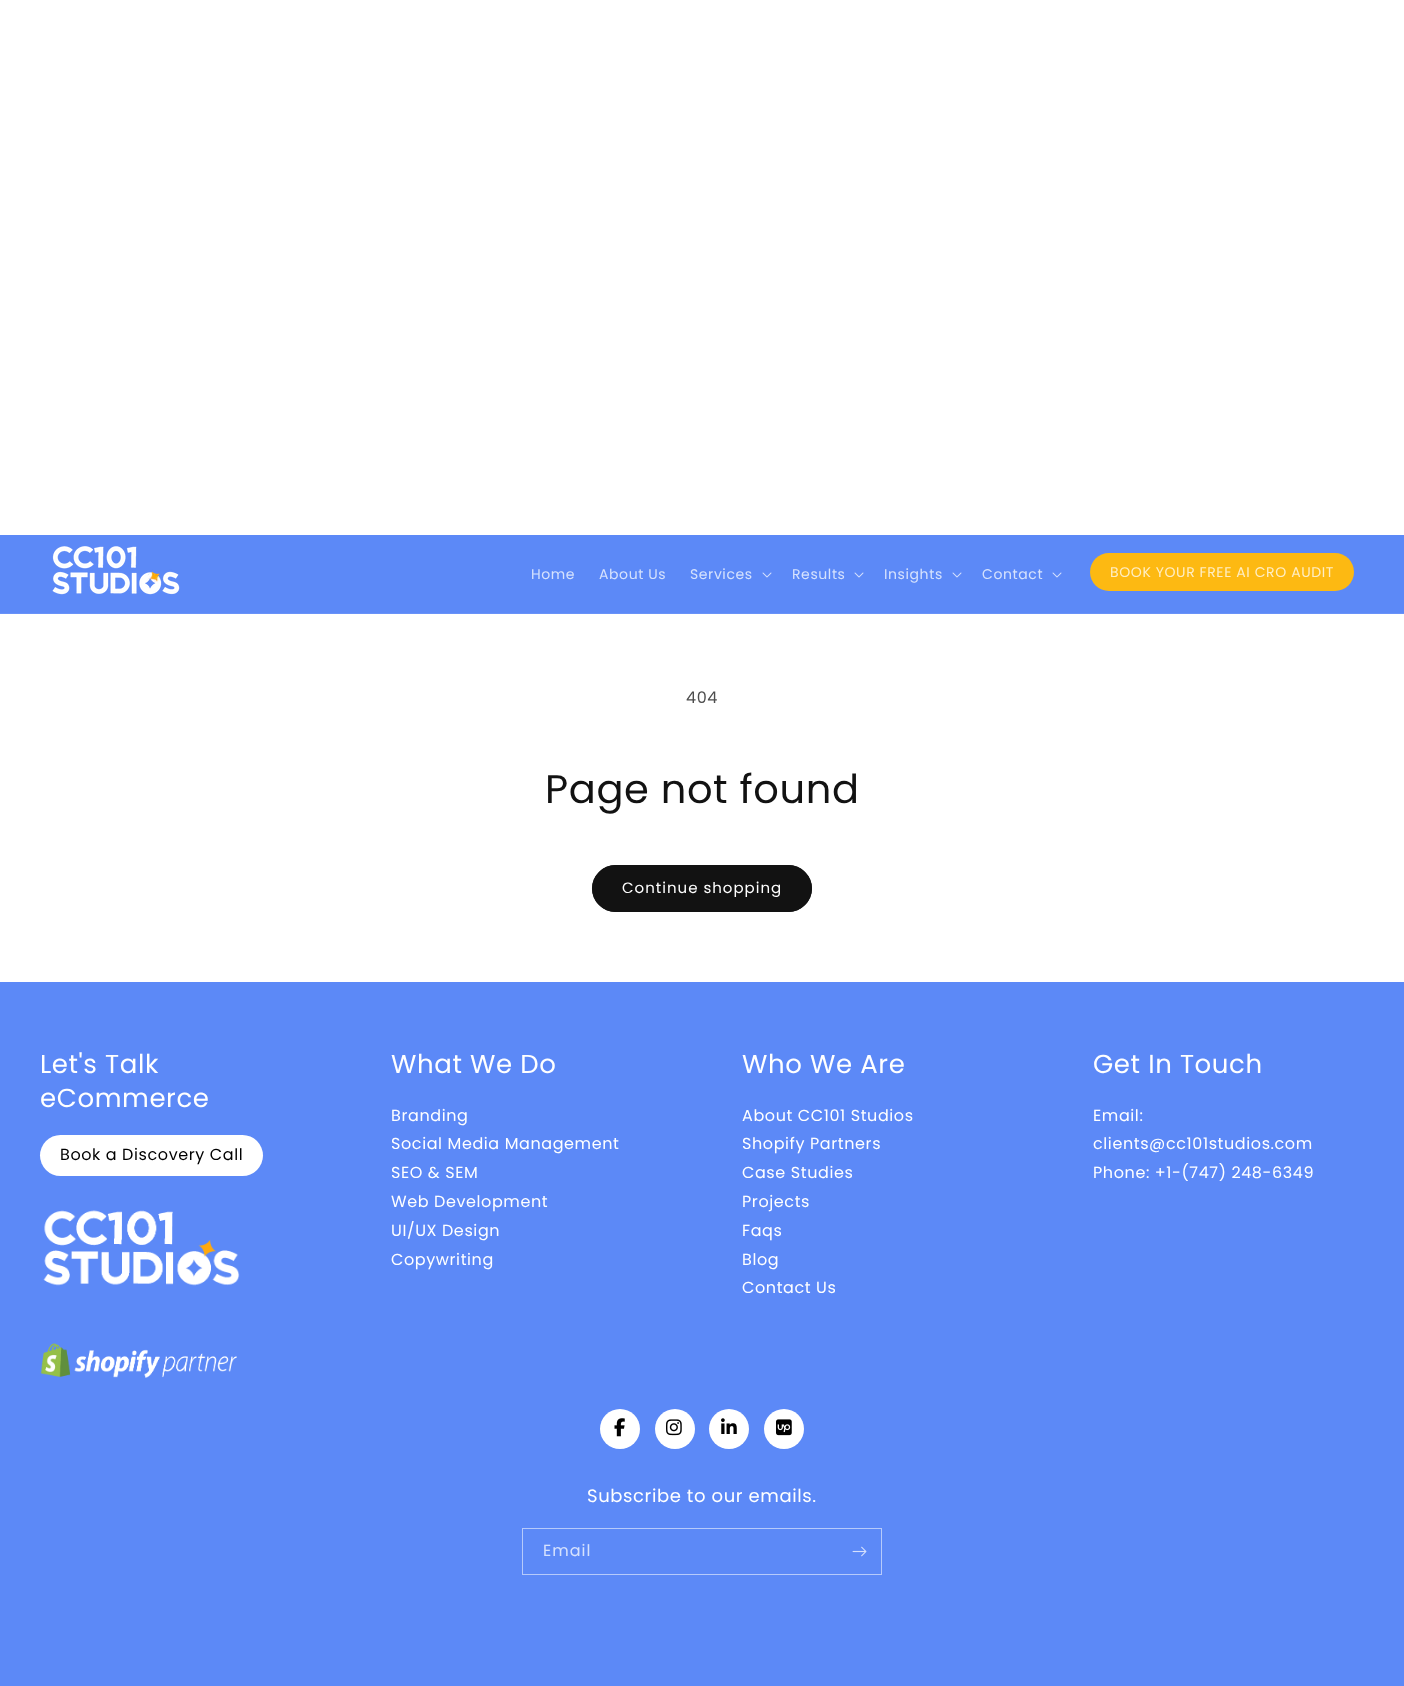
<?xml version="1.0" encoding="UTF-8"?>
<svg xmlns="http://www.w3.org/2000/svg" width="1404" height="1686">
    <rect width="100%" height="100%" fill="#FFFFFF"/>
    <rect x="0" y="535" width="1404" height="78" fill="#5C89F7"/>
    <rect x="0" y="613" width="1404" height="1" fill="#6992F8"/>
    <image x="52" y="546" width="128" height="49" href="img_01.png"/>
    <text x="531" y="579" font-family="Poppins" font-size="14" letter-spacing="0.6" fill="#D6E2FD">Home</text>
    <text x="599" y="579" font-family="Poppins" font-size="14" letter-spacing="0.6" fill="#D6E2FD">About Us</text>
    <text x="690" y="579" font-family="Poppins" font-size="14" letter-spacing="0.6" fill="#D6E2FD">Services</text>
    <image x="762" y="572" width="10" height="6" href="img_02.png"/>
    <text x="792" y="579" font-family="Poppins" font-size="14" letter-spacing="0.6" fill="#D6E2FD">Results</text>
    <image x="854" y="572" width="10" height="6" href="img_02.png"/>
    <text x="884" y="579" font-family="Poppins" font-size="14" letter-spacing="0.6" fill="#D6E2FD">Insights</text>
    <image x="952" y="572" width="10" height="6" href="img_02.png"/>
    <text x="982" y="579" font-family="Poppins" font-size="14" letter-spacing="0.6" fill="#D6E2FD">Contact</text>
    <image x="1052" y="572" width="10" height="6" href="img_02.png"/>
    <rect x="1090" y="553" width="264" height="38" rx="19" fill="#FDB912"/>
    <text x="1110" y="577" font-family="Poppins" font-size="14" letter-spacing="0.6" fill="#FFEEC4">BOOK YOUR FREE AI CRO AUDIT</text>
    <text x="686" y="703" font-family="Poppins" font-size="16" letter-spacing="0.6" fill="#4D4D4D">404</text>
    <text x="545" y="803" font-family="Poppins" font-size="40" letter-spacing="0.6" fill="#121212">Page not found</text>
    <rect x="592" y="865" width="220" height="47" rx="23.5" fill="#121212"/>
    <rect x="592.5" y="865.5" width="219" height="46" rx="23" fill="none" stroke="#121212"/>
    <text x="622" y="893" font-family="Poppins" font-size="15" letter-spacing="1" fill="#FFFFFF">Continue shopping</text>
    <rect x="0" y="982" width="1404" height="704" fill="#5C89F7"/>
    <text font-family="Poppins" font-size="26" letter-spacing="0.6" fill="#FFFFFF">
        <tspan x="40" y="1073">Let's Talk</tspan>
        <tspan x="40" y="1107">eCommerce</tspan>
    </text>
    <rect x="40" y="1135" width="223" height="41" rx="20.5" fill="#FFFFFF"/>
    <text x="60" y="1160" font-family="Poppins" font-size="16" letter-spacing="0.6" fill="#000000">Book a Discovery Call</text>
    <image x="43" y="1210" width="197" height="76" href="img_03.png"/>
    <image x="40" y="1343" width="197" height="35" href="img_04.png"/>
    <text x="391" y="1073" font-family="Poppins" font-size="26" letter-spacing="0.6" fill="#FFFFFF">What We Do</text>
    <text font-family="Poppins" font-size="16" letter-spacing="0.6" fill="#FFFFFF">
        <tspan x="391" y="1121">Branding</tspan>
        <tspan x="391" y="1149">Social Media Management</tspan>
        <tspan x="391" y="1178">SEO &amp; SEM</tspan>
        <tspan x="391" y="1207">Web Development</tspan>
        <tspan x="391" y="1236">UI/UX Design</tspan>
        <tspan x="391" y="1265">Copywriting</tspan>
    </text>
    <text x="742" y="1073" font-family="Poppins" font-size="26" letter-spacing="0.6" fill="#FFFFFF">Who We Are</text>
    <text font-family="Poppins" font-size="16" letter-spacing="0.6" fill="#FFFFFF">
        <tspan x="742" y="1121">About CC101 Studios</tspan>
        <tspan x="742" y="1149">Shopify Partners</tspan>
        <tspan x="742" y="1178">Case Studies</tspan>
        <tspan x="742" y="1207">Projects</tspan>
        <tspan x="742" y="1236">Faqs</tspan>
        <tspan x="742" y="1265">Blog</tspan>
        <tspan x="742" y="1293">Contact Us</tspan>
    </text>
    <text x="1093" y="1073" font-family="Poppins" font-size="26" letter-spacing="0.6" fill="#FFFFFF">Get In Touch</text>
    <text font-family="Poppins" font-size="16" letter-spacing="0.6" fill="#FFFFFF">
        <tspan x="1093" y="1121">Email:</tspan>
        <tspan x="1093" y="1149">clients@cc101studios.com</tspan>
        <tspan x="1093" y="1178">Phone: +1-(747) 248-6349</tspan>
    </text>
    <circle cx="620" cy="1429" r="20" fill="#FFFFFF"/>
    <image x="614" y="1418" width="11" height="19" href="img_05.png"/>
    <circle cx="675" cy="1429" r="20" fill="#FFFFFF"/>
    <image x="666" y="1419" width="16" height="17" href="img_06.png"/>
    <circle cx="729" cy="1429" r="20" fill="#FFFFFF"/>
    <image x="721" y="1418" width="16" height="16" href="img_07.png"/>
    <circle cx="784" cy="1429" r="20" fill="#FFFFFF"/>
    <image x="776" y="1419" width="16" height="17" href="img_08.png"/>
    <text x="587" y="1502" font-family="Poppins" font-size="18" letter-spacing="0.6" fill="#FFFFFF">Subscribe to our emails.</text>
    <rect x="522.5" y="1528.5" width="359" height="46" fill="none" stroke="#B6CAFB"/>
    <text x="543" y="1556" font-family="Poppins" font-size="16" letter-spacing="1" fill="#D6E2FD">Email</text>
    <image x="852" y="1546" width="15" height="11" href="img_09.png"/>
</svg>
